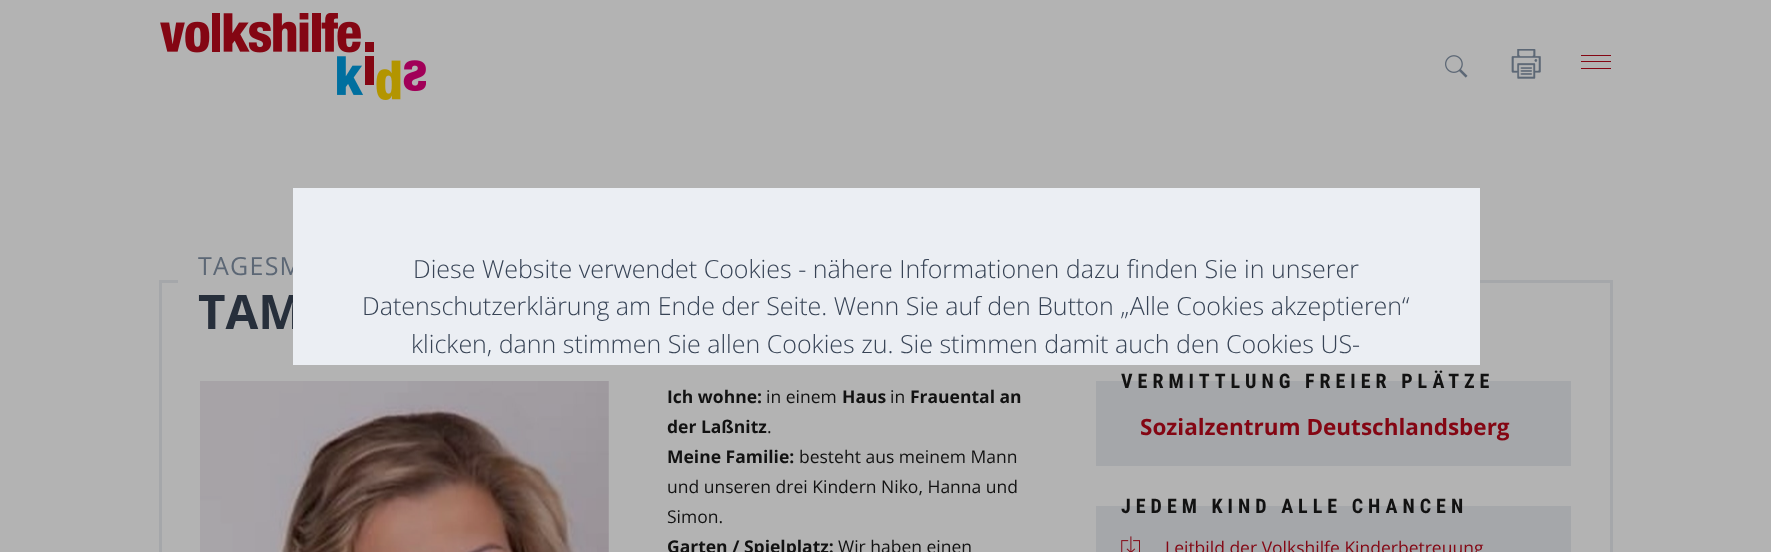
<?xml version="1.0" encoding="UTF-8"?>
<svg xmlns="http://www.w3.org/2000/svg" width="1771" height="552">
    <rect width="100%" height="100%" fill="#B3B3B3"/>
    <image x="160" y="13" width="266" height="87" href="img_01.png"/>
    <image x="1445" y="55" width="23" height="23" href="img_02.png"/>
    <image x="1511" y="49" width="30" height="30" href="img_03.png"/>
    <rect x="1581" y="61" width="30" height="1" fill="#840613"/>
    <rect x="1581" y="55" width="30" height="1" fill="#840613"/>
    <rect x="1581" y="68" width="30" height="1" fill="#840613"/>
    <rect x="160.5" y="281.5" width="1451" height="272" fill="none" stroke="#A5A7AA" stroke-width="3"/>
    <rect x="178" y="280" width="115" height="3" fill="#B3B3B3"/>
    <text x="198" y="275" font-family="Open Sans" font-size="25" letter-spacing="1.25" fill="#5C6775">TAGESM</text>
    <text x="198" y="329" font-family="Open Sans" font-size="47.5" font-weight="700" fill="#272F3B">TAM</text>
    <image x="200" y="381" width="409" height="171" href="img_04.png"/>
    <text x="667" y="403" font-family="Open Sans" font-size="17.5" font-weight="700" fill="#121212">Ich wohne:</text>
    <text x="766" y="403" font-family="Open Sans" font-size="17.5" fill="#121212">in einem</text>
    <text x="842" y="403" font-family="Open Sans" font-size="17.5" font-weight="700" fill="#121212">Haus</text>
    <text x="890" y="403" font-family="Open Sans" font-size="17.5" fill="#121212">in</text>
    <text x="910" y="403" font-family="Open Sans" font-size="17.5" font-weight="700" fill="#121212">Frauental an</text>
    <text x="667" y="433" font-family="Open Sans" font-size="17.5" font-weight="700" fill="#121212">der Laßnitz</text>
    <text x="767" y="433" font-family="Open Sans" font-size="17.5" fill="#121212">.</text>
    <text x="667" y="463" font-family="Open Sans" font-size="17.5" font-weight="700" fill="#121212">Meine Familie:</text>
    <text x="799" y="463" font-family="Open Sans" font-size="17.5" fill="#121212">besteht aus meinem Mann</text>
    <text font-family="Open Sans" font-size="17.5" fill="#121212">
        <tspan x="667" y="493">und unseren drei Kindern Niko, Hanna und</tspan>
        <tspan x="667" y="523">Simon.</tspan>
    </text>
    <text x="667" y="553" font-family="Open Sans" font-size="17.5" font-weight="700" fill="#121212">Garten / Spielplatz:</text>
    <text x="838" y="553" font-family="Open Sans" font-size="17.5" fill="#121212">Wir haben einen</text>
    <rect x="1096" y="381" width="475" height="85" fill="#A5A7AA"/>
    <text x="1121" y="388" font-family="Roboto Condensed" font-size="20" font-weight="700" letter-spacing="5" fill="#121212">VERMITTLUNG FREIER PLÄTZE</text>
    <text x="1140" y="435" font-family="Open Sans" font-size="22.5" font-weight="700" fill="#840613">Sozialzentrum Deutschlandsberg</text>
    <rect x="1096" y="506" width="475" height="46" fill="#A5A7AA"/>
    <text x="1121" y="513" font-family="Roboto Condensed" font-size="20" font-weight="700" letter-spacing="5" fill="#121212">JEDEM KIND ALLE CHANCEN</text>
    <image x="1121" y="536" width="19" height="16" href="img_05.png"/>
    <text x="1165" y="554" font-family="Open Sans" font-size="17.5" fill="#840613">Leitbild der Volkshilfe Kinderbetreuung</text>
    <rect x="293" y="188" width="1187" height="177" fill="#EBEEF3"/>
    <text x="413" y="278" font-family="Open Sans" font-size="25" font-weight="300" fill="#374355">Diese Website verwendet Cookies - nähere Informationen dazu finden Sie in unserer</text>
    <text x="362" y="315" font-family="Open Sans" font-size="25" font-weight="300" fill="#374355">Datenschutzerklärung am Ende der Seite. Wenn Sie auf den Button „Alle Cookies akzeptieren“</text>
    <text x="411" y="353" font-family="Open Sans" font-size="25" font-weight="300" fill="#374355">klicken, dann stimmen Sie allen Cookies zu. Sie stimmen damit auch den Cookies US-</text>
</svg>
